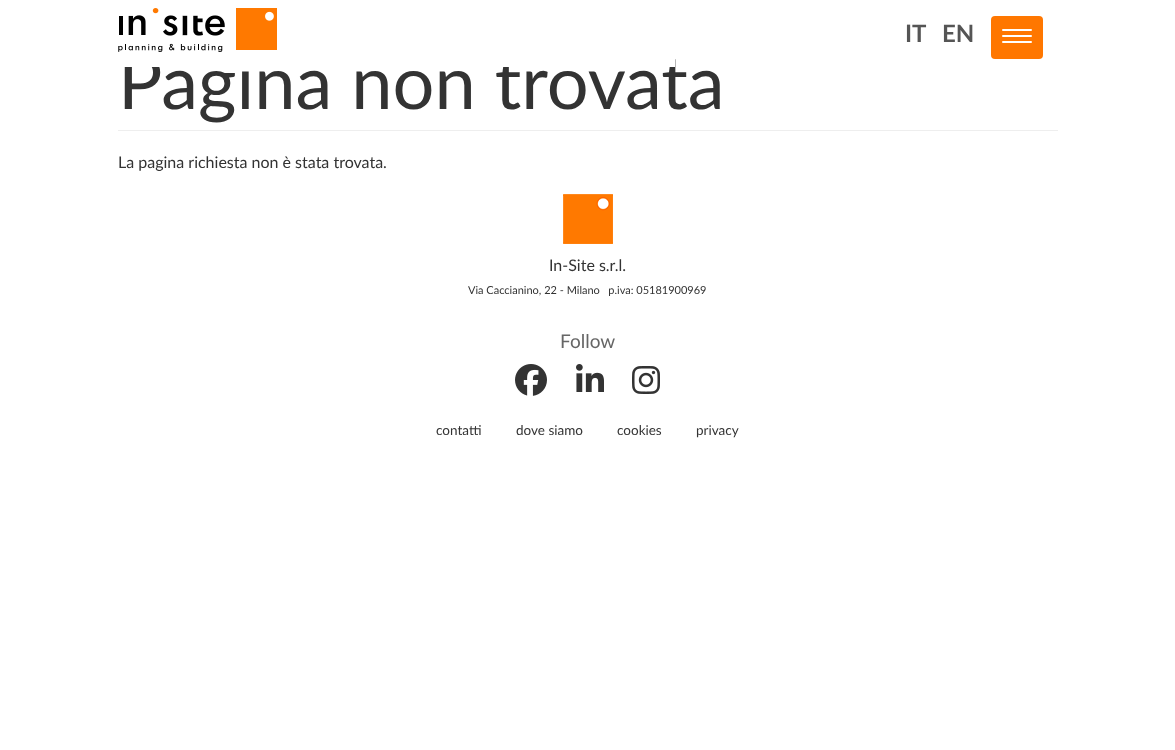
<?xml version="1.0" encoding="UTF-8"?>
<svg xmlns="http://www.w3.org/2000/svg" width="1175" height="750">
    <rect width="100%" height="100%" fill="#FFFFFF"/>
    <text x="118" y="109" font-family="Lato" font-size="74" fill="#333333">Pagina non trovata</text>
    <rect x="124" y="55" width="551" height="12" fill="#FFFFFF"/>
    <image x="118" y="8" width="159" height="44" href="img_01.png"/>
    <text x="905" y="42" font-family="Lato" font-size="24" font-weight="700" fill="#555555">IT</text>
    <text x="942" y="42" font-family="Lato" font-size="24" font-weight="700" fill="#555555">EN</text>
    <rect x="991" y="16" width="52" height="43" rx="4" fill="#FF7700"/>
    <rect x="1002" y="29" width="30" height="2" rx="1" fill="#FFFFFF"/>
    <rect x="1002" y="35" width="30" height="2" rx="1" fill="#FFFFFF"/>
    <rect x="1002" y="41" width="30" height="2" rx="1" fill="#FFFFFF"/>
    <rect x="118" y="130" width="940" height="1" fill="#EEEEEE"/>
    <text x="118" y="168" font-family="Lato" font-size="16" fill="#333333">La pagina richiesta non è stata trovata.</text>
    <image x="563" y="194" width="50" height="50" href="img_02.png"/>
    <text x="549" y="271" font-family="Lato" font-size="16" fill="#333333">In-Site s.r.l.</text>
    <text x="468" y="294" font-family="Lato" font-size="11" fill="#333333" xml:space="preserve">Via Caccianino, 22 - Milano   p.iva: 05181900969</text>
    <text x="560" y="348" font-family="Lato" font-size="19" fill="#666666">Follow</text>
    <image x="515" y="364" width="32" height="32" href="img_03.png"/>
    <image x="576" y="364" width="28" height="28" href="img_04.png"/>
    <image x="632" y="366" width="28" height="28" href="img_05.png"/>
    <text x="436" y="435" font-family="Lato" font-size="13.5" fill="#333333">contatti</text>
    <text x="516" y="435" font-family="Lato" font-size="13.5" fill="#333333">dove siamo</text>
    <text x="617" y="435" font-family="Lato" font-size="13.5" fill="#333333">cookies</text>
    <text x="696" y="435" font-family="Lato" font-size="13.5" fill="#333333">privacy</text>
</svg>
